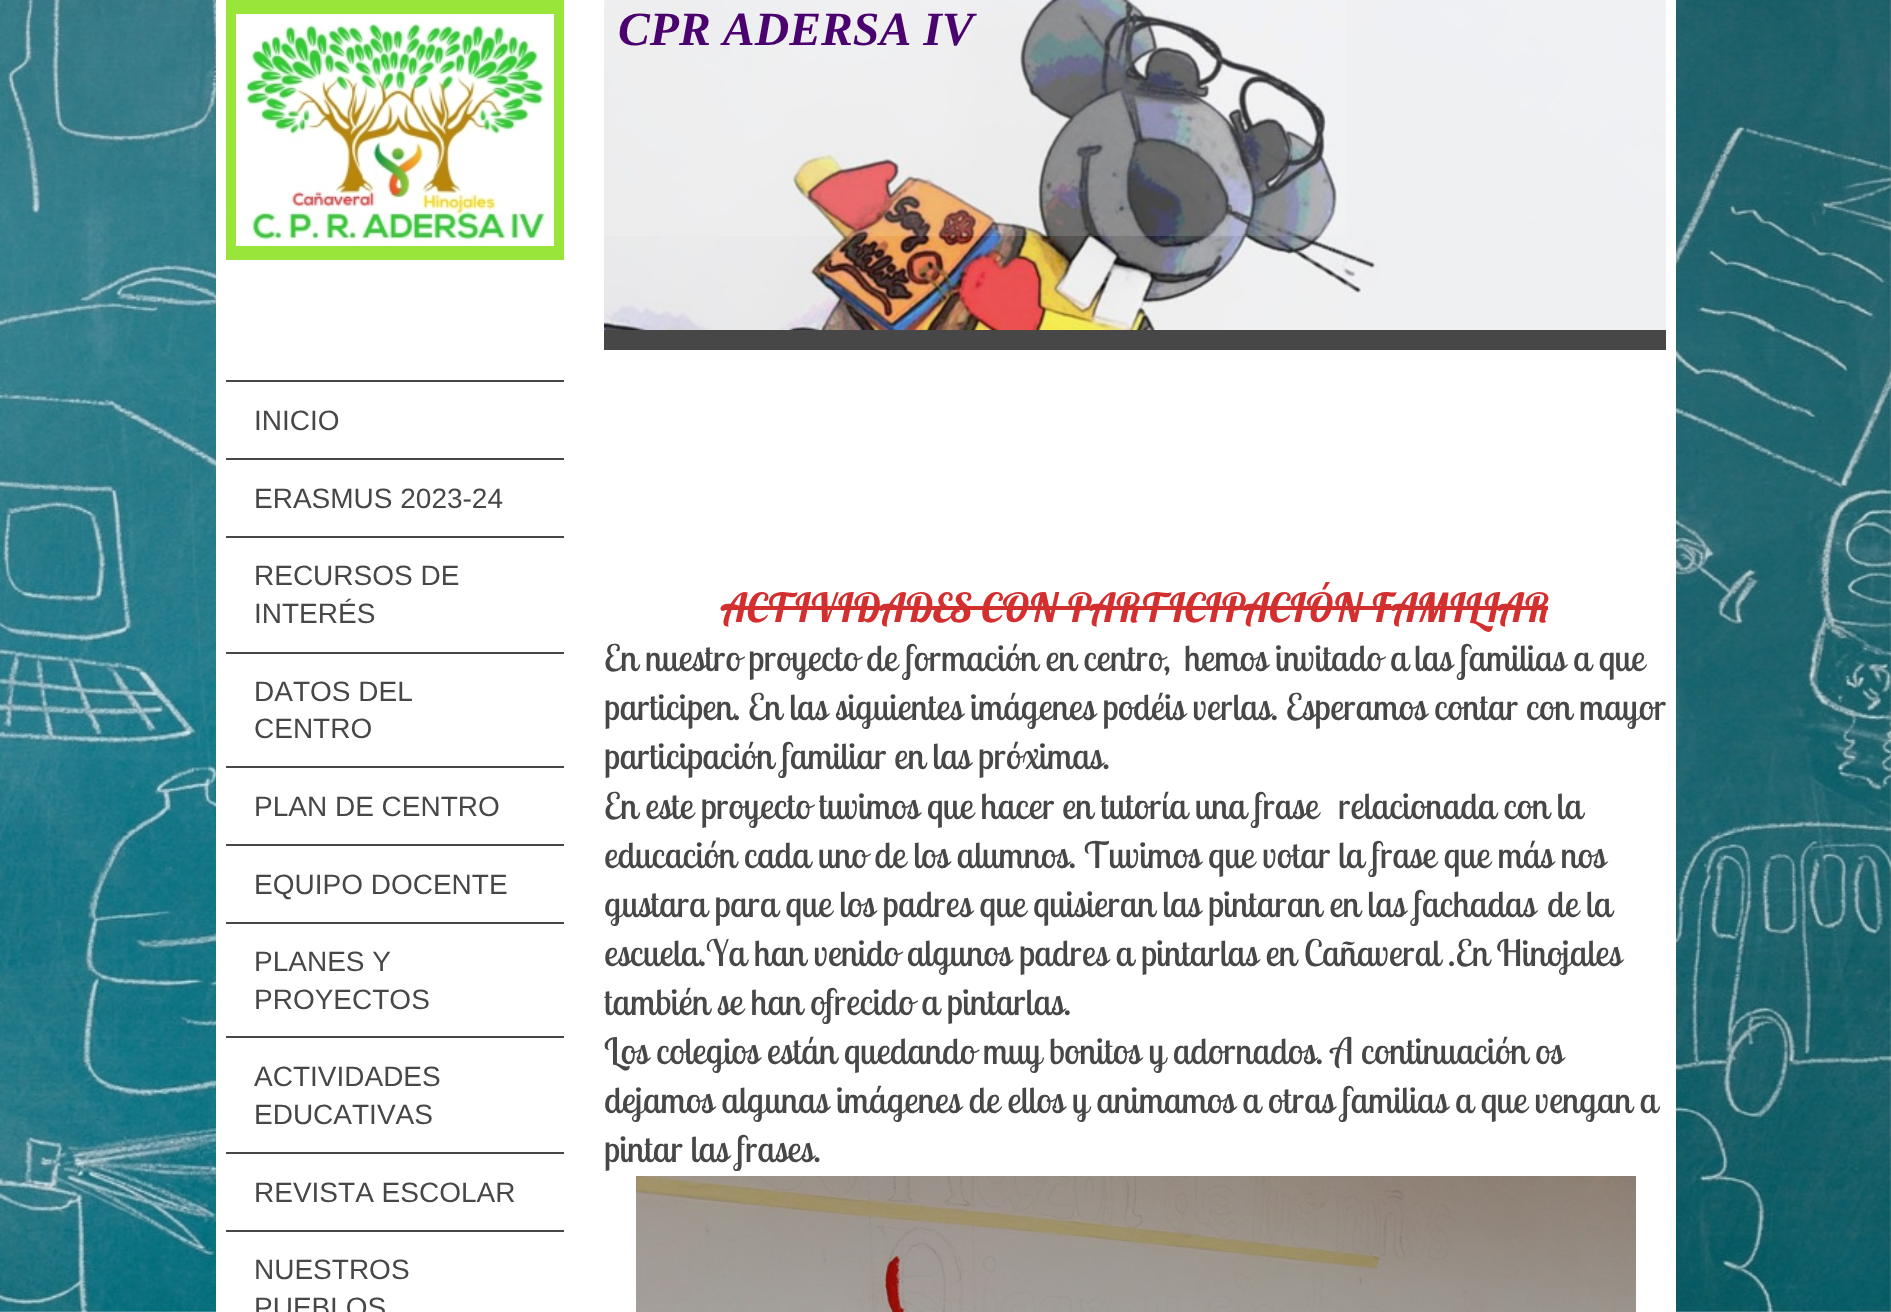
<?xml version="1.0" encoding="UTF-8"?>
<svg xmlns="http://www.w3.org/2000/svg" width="1891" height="1312">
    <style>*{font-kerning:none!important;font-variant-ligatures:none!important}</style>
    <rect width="100%" height="100%" fill="#FFFFFF"/>
    <image x="0" y="0" width="1891" height="1312" href="img_01.png"/>
    <rect x="216" y="0" width="1460" height="1312" fill="#FFFFFF"/>
    <rect x="226" y="0" width="338" height="260" fill="#99E53A"/>
    <image x="236" y="14" width="318" height="232" href="img_02.png"/>
    <rect x="226" y="380" width="338" height="2" fill="#474747"/>
    <rect x="226" y="458" width="338" height="2" fill="#474747"/>
    <text x="254" y="430" font-family="Liberation Sans" font-size="28" fill="#474747">INICIO</text>
    <rect x="226" y="536" width="338" height="2" fill="#474747"/>
    <text x="254" y="508" font-family="Liberation Sans" font-size="28" fill="#474747">ERASMUS 2023-24</text>
    <rect x="226" y="652" width="338" height="2" fill="#474747"/>
    <text font-family="Liberation Sans" font-size="28" fill="#474747">
        <tspan x="254" y="585">RECURSOS DE</tspan>
        <tspan x="254" y="623">INTERÉS</tspan>
    </text>
    <rect x="226" y="766" width="338" height="2" fill="#474747"/>
    <text font-family="Liberation Sans" font-size="28" fill="#474747">
        <tspan x="254" y="701">DATOS DEL</tspan>
        <tspan x="254" y="738">CENTRO</tspan>
    </text>
    <rect x="226" y="844" width="338" height="2" fill="#474747"/>
    <text x="254" y="816" font-family="Liberation Sans" font-size="28" fill="#474747">PLAN DE CENTRO</text>
    <rect x="226" y="922" width="338" height="2" fill="#474747"/>
    <text x="254" y="894" font-family="Liberation Sans" font-size="28" fill="#474747">EQUIPO DOCENTE</text>
    <rect x="226" y="1036" width="338" height="2" fill="#474747"/>
    <text font-family="Liberation Sans" font-size="28" fill="#474747">
        <tspan x="254" y="971">PLANES Y</tspan>
        <tspan x="254" y="1009">PROYECTOS</tspan>
    </text>
    <rect x="226" y="1152" width="338" height="2" fill="#474747"/>
    <text font-family="Liberation Sans" font-size="28" fill="#474747">
        <tspan x="254" y="1086">ACTIVIDADES</tspan>
        <tspan x="254" y="1124">EDUCATIVAS</tspan>
    </text>
    <rect x="226" y="1230" width="338" height="2" fill="#474747"/>
    <text x="254" y="1202" font-family="Liberation Sans" font-size="28" fill="#474747">REVISTA ESCOLAR</text>
    <text font-family="Liberation Sans" font-size="28" fill="#474747">
        <tspan x="254" y="1279">NUESTROS</tspan>
        <tspan x="254" y="1317">PUEBLOS</tspan>
    </text>
    <rect x="604" y="330" width="1062" height="20" fill="#474747"/>
    <image x="604" y="0" width="1062" height="330" href="img_03.png"/>
    <rect x="604" y="0" width="743" height="236" fill="#FFFFFF" fill-opacity="0.14"/>
    <text x="618" y="45" font-family="Liberation Serif" font-size="47.75" font-weight="700" font-style="italic" fill="#4A026E">CPR ADERSA IV</text>
    <text x="722" y="622" font-family="Lobster Two" font-size="40" font-weight="700" font-style="italic" fill="#D32F2F">ACTIVIDADES CON PARTICIPACIÓN FAMILIAR</text>
    <rect x="722" y="606" width="826" height="4" fill="#D32F2F"/>
    <text x="604" y="671" font-family="Lobster Two" font-size="36.4" fill="#474747">En nuestro proyecto de formación en centro,</text>
    <text x="1184" y="671" font-family="Lobster Two" font-size="36.4" fill="#474747">hemos invitado</text>
    <text x="1390" y="671" font-family="Lobster Two" font-size="36.4" fill="#474747">a</text>
    <text x="1414" y="671" font-family="Lobster Two" font-size="36.4" fill="#474747">las familias a que</text>
    <text font-family="Lobster Two" font-size="36.4" fill="#474747">
        <tspan x="604" y="720">participen. En las siguientes imágenes podéis verlas. Esperamos contar con mayor</tspan>
        <tspan x="604" y="769">participación familiar en las próximas.</tspan>
        <tspan x="604" y="819">En este proyecto tuvimos que hacer en tutoría una frase</tspan>
    </text>
    <text x="1338" y="819" font-family="Lobster Two" font-size="36.4" fill="#474747">relacionada con la</text>
    <text font-family="Lobster Two" font-size="36.4" fill="#474747">
        <tspan x="604" y="868">educación cada uno de los alumnos. Tuvimos que votar la frase que más nos</tspan>
        <tspan x="604" y="917">gustara para que los padres que quisieran las pintaran en las fachadas</tspan>
    </text>
    <text x="1547" y="917" font-family="Lobster Two" font-size="36.4" fill="#474747">de la</text>
    <text font-family="Lobster Two" font-size="36.4" fill="#474747">
        <tspan x="604" y="966">escuela.Ya han venido algunos padres a pintarlas en Cañaveral .En Hinojales</tspan>
        <tspan x="604" y="1015">también se han ofrecido a pintarlas.</tspan>
        <tspan x="604" y="1064">Los colegios están quedando muy bonitos y adornados. A continuación os</tspan>
        <tspan x="604" y="1113">dejamos algunas imágenes de ellos y animamos a otras familias a que vengan a</tspan>
        <tspan x="604" y="1162">pintar las frases.</tspan>
    </text>
    <image x="636" y="1176" width="1000" height="136" href="img_04.png"/>
</svg>
